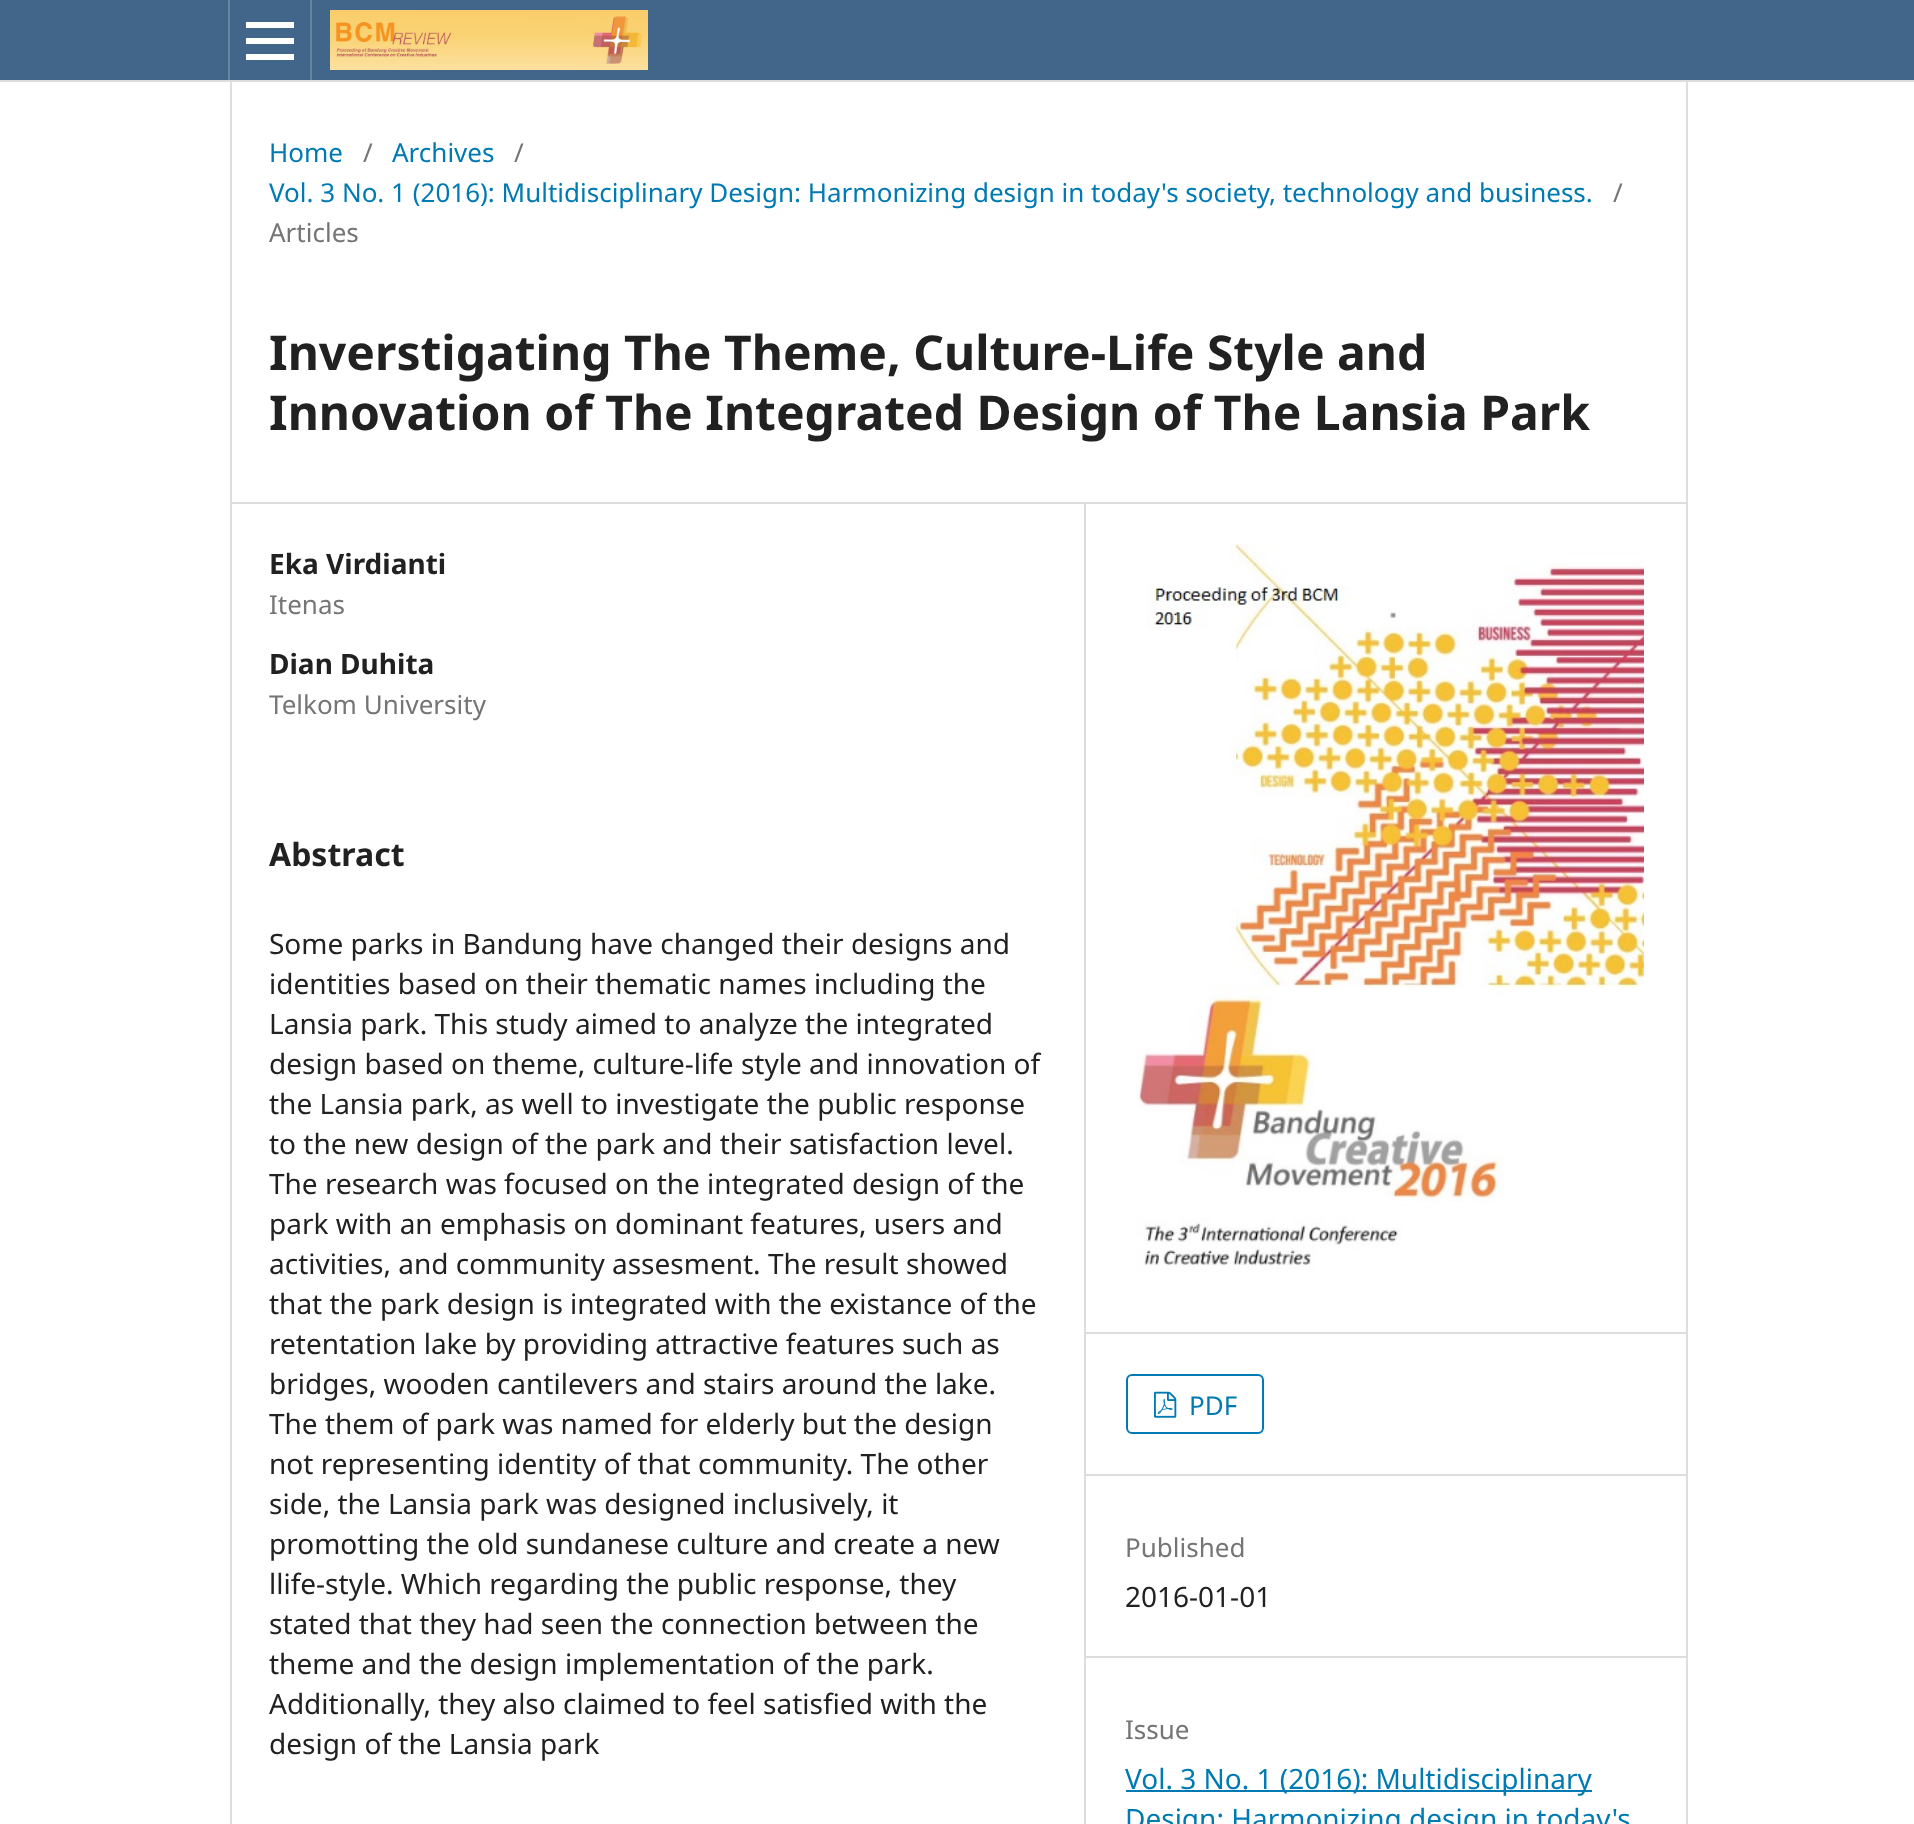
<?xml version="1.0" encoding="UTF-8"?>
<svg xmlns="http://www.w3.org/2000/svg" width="1914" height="1824">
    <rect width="100%" height="100%" fill="#FFFFFF"/>
    <rect x="0" y="0" width="1914" height="80" fill="#416689"/>
    <rect x="0" y="80" width="1914" height="2" fill="#DDDDDD"/>
    <rect x="228" y="0" width="2" height="80" fill="#6785A1"/>
    <rect x="310" y="0" width="2" height="80" fill="#6785A1"/>
    <rect x="246" y="54" width="48" height="6" fill="#FFFFFF"/>
    <rect x="246" y="22" width="48" height="6" fill="#FFFFFF"/>
    <rect x="246" y="38" width="48" height="6" fill="#FFFFFF"/>
    <image x="330" y="10" width="318" height="60" href="img_01.png"/>
    <rect x="230" y="502" width="1456" height="2" fill="#DDDDDD"/>
    <rect x="230" y="82" width="2" height="1742" fill="#DDDDDD"/>
    <text x="269" y="162" font-family="Noto Sans" font-size="26" fill="#007AB2">Home</text>
    <text x="363" y="162" font-family="Noto Sans" font-size="26" fill="#757575">/</text>
    <text x="392" y="162" font-family="Noto Sans" font-size="26" fill="#007AB2">Archives</text>
    <text x="514" y="162" font-family="Noto Sans" font-size="26" fill="#757575">/</text>
    <text x="269" y="202" font-family="Noto Sans" font-size="26" fill="#007AB2">Vol. 3 No. 1 (2016): Multidisciplinary Design: Harmonizing design in today's society, technology and business.</text>
    <text x="1613" y="202" font-family="Noto Sans" font-size="26" fill="#757575">/</text>
    <text x="269" y="242" font-family="Noto Sans" font-size="26" fill="#757575">Articles</text>
    <text font-family="Noto Sans" font-size="48" font-weight="700" fill="#212121">
        <tspan x="269" y="370">Inverstigating The Theme, Culture-Life Style and</tspan>
        <tspan x="269" y="430">Innovation of The Integrated Design of The Lansia Park</tspan>
    </text>
    <text x="269" y="574" font-family="Noto Sans" font-size="28" font-weight="700" fill="#212121">Eka Virdianti</text>
    <text x="269" y="614" font-family="Noto Sans" font-size="26" fill="#757575">Itenas</text>
    <text x="269" y="674" font-family="Noto Sans" font-size="28" font-weight="700" fill="#212121">Dian Duhita</text>
    <text x="269" y="714" font-family="Noto Sans" font-size="26" fill="#757575">Telkom University</text>
    <text x="269" y="866" font-family="Noto Sans" font-size="32" font-weight="700" fill="#212121">Abstract</text>
    <text font-family="Noto Sans" font-size="28" fill="#212121">
        <tspan x="269" y="954">Some parks in Bandung have changed their designs and</tspan>
        <tspan x="269" y="994">identities based on their thematic names including the</tspan>
        <tspan x="269" y="1034">Lansia park. This study aimed to analyze the integrated</tspan>
        <tspan x="269" y="1074">design based on theme, culture-life style and innovation of</tspan>
        <tspan x="269" y="1114">the Lansia park, as well to investigate the public response</tspan>
        <tspan x="269" y="1154">to the new design of the park and their satisfaction level.</tspan>
        <tspan x="269" y="1194">The research was focused on the integrated design of the</tspan>
        <tspan x="269" y="1234">park with an emphasis on dominant features, users and</tspan>
        <tspan x="269" y="1274">activities, and community assesment. The result showed</tspan>
        <tspan x="269" y="1314">that the park design is integrated with the existance of the</tspan>
        <tspan x="269" y="1354">retentation lake by providing attractive features such as</tspan>
        <tspan x="269" y="1394">bridges, wooden cantilevers and stairs around the lake.</tspan>
        <tspan x="269" y="1434">The them of park was named for elderly but the design</tspan>
        <tspan x="269" y="1474">not representing identity of that community. The other</tspan>
        <tspan x="269" y="1514">side, the Lansia park was designed inclusively, it</tspan>
        <tspan x="269" y="1554">promotting the old sundanese culture and create a new</tspan>
        <tspan x="269" y="1594">llife-style. Which regarding the public response, they</tspan>
        <tspan x="269" y="1634">stated that they had seen the connection between the</tspan>
        <tspan x="269" y="1674">theme and the design implementation of the park.</tspan>
        <tspan x="269" y="1714">Additionally, they also claimed to feel satisfied with the</tspan>
        <tspan x="269" y="1754">design of the Lansia park</tspan>
    </text>
    <rect x="1084" y="504" width="2" height="1320" fill="#DDDDDD"/>
    <rect x="1086" y="1332" width="600" height="2" fill="#DDDDDD"/>
    <image x="1136" y="544" width="508" height="726" href="img_02.png"/>
    <rect x="1086" y="1474" width="600" height="2" fill="#DDDDDD"/>
    <rect x="1127" y="1375" width="136" height="58" rx="5" fill="none" stroke="#007AB2" stroke-width="2"/>
    <image x="1154" y="1391" width="23" height="27" href="img_03.png"/>
    <text x="1189" y="1415" font-family="Noto Sans" font-size="26" fill="#007AB2">PDF</text>
    <rect x="1086" y="1656" width="600" height="2" fill="#DDDDDD"/>
    <text x="1125" y="1557" font-family="Noto Sans" font-size="26" fill="#757575">Published</text>
    <text x="1125" y="1607" font-family="Noto Sans" font-size="28" fill="#212121">2016-01-01</text>
    <text x="1125" y="1739" font-family="Noto Sans" font-size="26" fill="#757575">Issue</text>
    <rect x="1126" y="1790" width="466" height="2" fill="#007AB2"/>
    <text font-family="Noto Sans" font-size="28" fill="#007AB2">
        <tspan x="1125" y="1789">Vol. 3 No. 1 (2016): Multidisciplinary</tspan>
        <tspan x="1125" y="1829">Design: Harmonizing design in today's</tspan>
    </text>
    <rect x="1686" y="82" width="2" height="1742" fill="#DDDDDD"/>
</svg>
